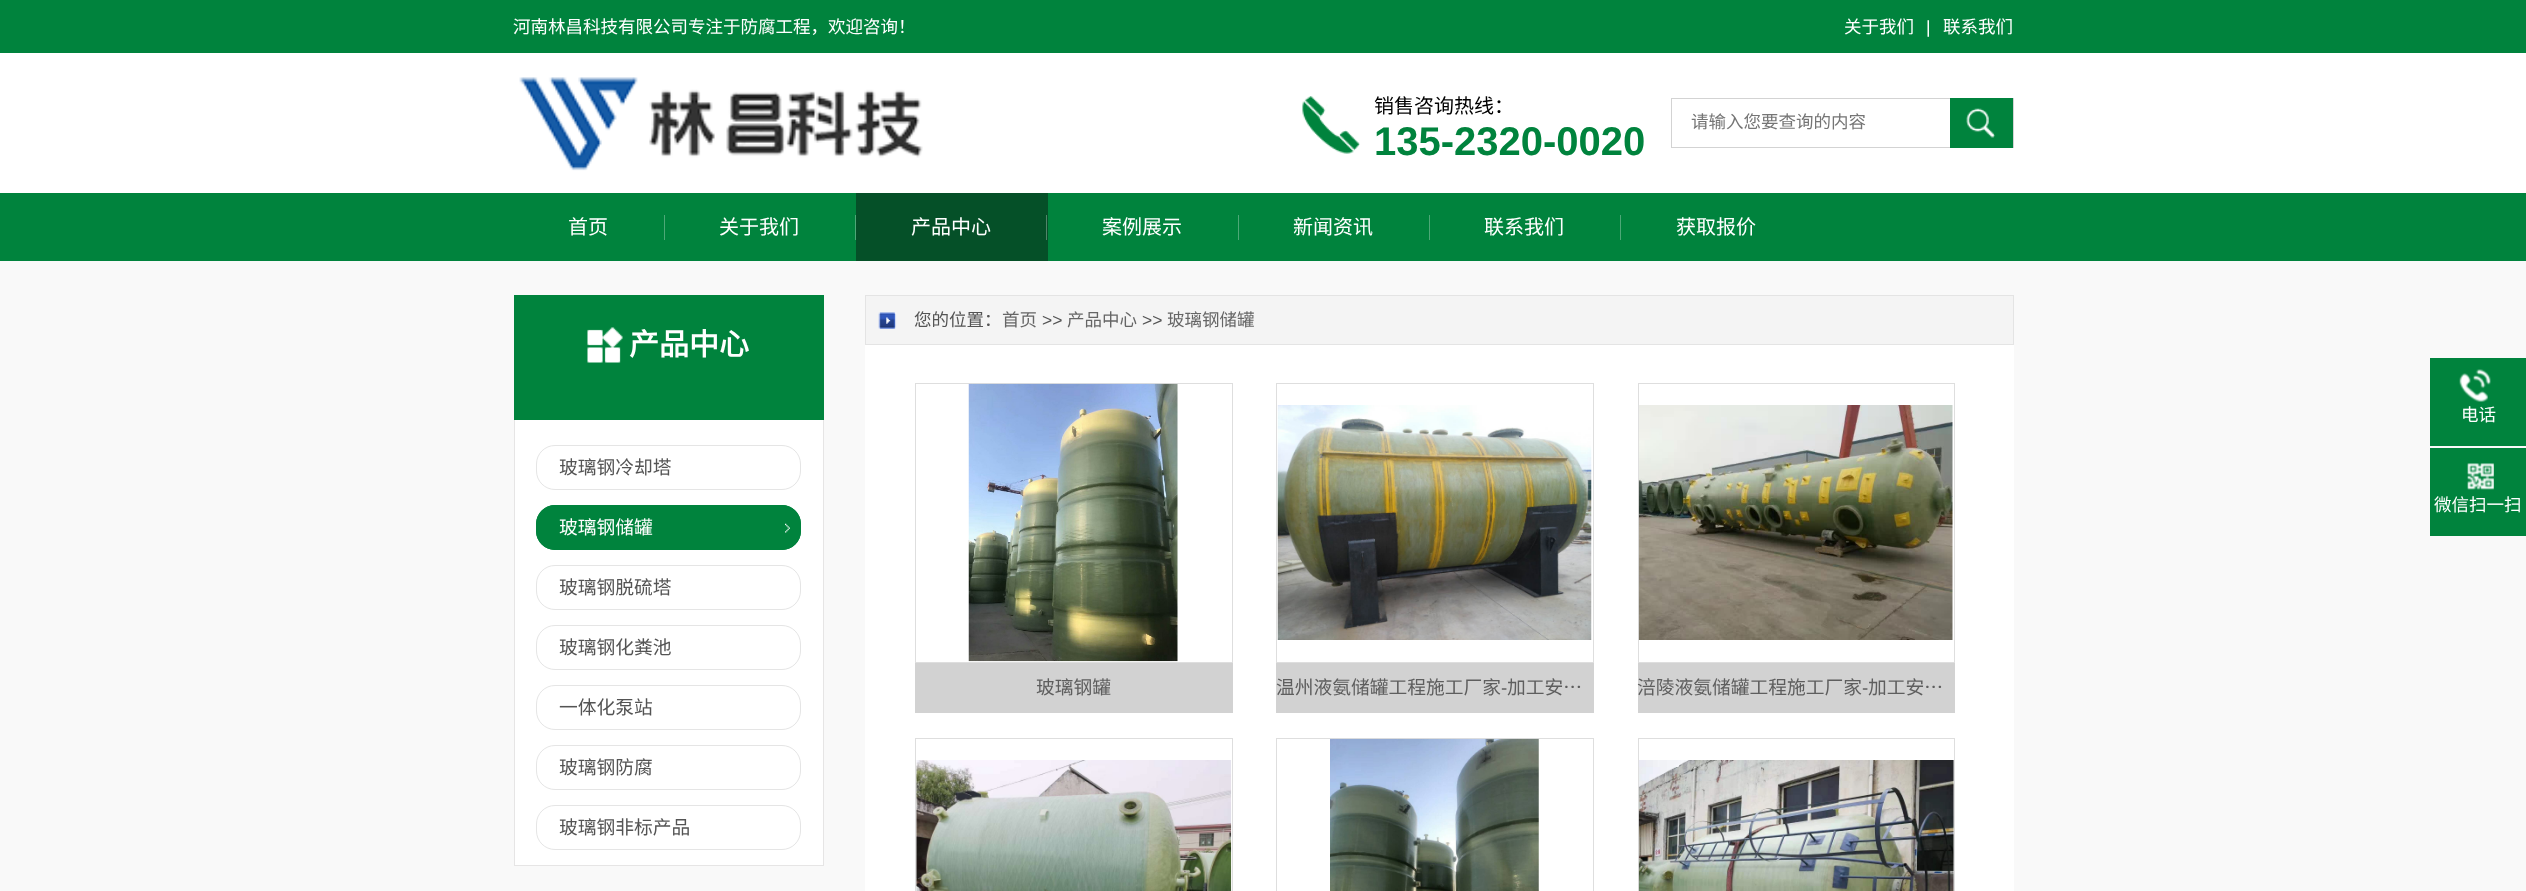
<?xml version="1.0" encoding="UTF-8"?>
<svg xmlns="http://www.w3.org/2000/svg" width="2526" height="891">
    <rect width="100%" height="100%" fill="#FFFFFF"/>
    <rect x="0" y="0" width="2526" height="53" fill="#00833D"/>
    <text x="513" y="33" font-family="Noto Sans CJK SC" font-size="17.5" fill="#FFFFFF">河南林昌科技有限公司专注于防腐工程，欢迎咨询！</text>
    <text x="1844" y="33" font-family="Noto Sans CJK SC" font-size="17.5" fill="#FFFFFF">关于我们</text>
    <text x="1926" y="33" font-family="Liberation Sans" font-size="17.5" fill="#FFFFFF">|</text>
    <text x="1943" y="33" font-family="Noto Sans CJK SC" font-size="17.5" fill="#FFFFFF">联系我们</text>
    <image x="519" y="77" width="404" height="94" href="img_01.png"/>
    <image x="1302" y="96" width="58" height="58" href="img_02.png"/>
    <text x="1374" y="113" font-family="Noto Sans CJK SC" font-size="20" fill="#000000">销售咨询热线：</text>
    <text x="1374" y="155" font-family="Liberation Sans" font-size="40" font-weight="700" fill="#00833D">135-2320-0020</text>
    <rect x="1671.5" y="98.5" width="342" height="49" fill="none" stroke="#D3D3D3"/>
    <text x="1691" y="128" font-family="Noto Sans CJK SC" font-size="17.5" fill="#757575">请输入您要查询的内容</text>
    <rect x="1950" y="98" width="63" height="50" fill="#00833D"/>
    <image x="1966" y="108" width="29" height="30" href="img_03.png"/>
    <rect x="0" y="193" width="2526" height="68" fill="#00833D"/>
    <rect x="664" y="215" width="1" height="25" fill="#4DA877"/>
    <text x="568" y="234" font-family="Noto Sans CJK SC" font-size="20" fill="#FFFFFF">首页</text>
    <rect x="855" y="215" width="1" height="25" fill="#4DA877"/>
    <text x="719" y="234" font-family="Noto Sans CJK SC" font-size="20" fill="#FFFFFF">关于我们</text>
    <rect x="856" y="193" width="192" height="68" fill="#055028"/>
    <rect x="1046" y="215" width="1" height="25" fill="#508569"/>
    <text x="911" y="234" font-family="Noto Sans CJK SC" font-size="20" fill="#FFFFFF">产品中心</text>
    <rect x="1238" y="215" width="1" height="25" fill="#4DA877"/>
    <text x="1102" y="234" font-family="Noto Sans CJK SC" font-size="20" fill="#FFFFFF">案例展示</text>
    <rect x="1429" y="215" width="1" height="25" fill="#4DA877"/>
    <text x="1293" y="234" font-family="Noto Sans CJK SC" font-size="20" fill="#FFFFFF">新闻资讯</text>
    <rect x="1620" y="215" width="1" height="25" fill="#4DA877"/>
    <text x="1484" y="234" font-family="Noto Sans CJK SC" font-size="20" fill="#FFFFFF">联系我们</text>
    <text x="1676" y="234" font-family="Noto Sans CJK SC" font-size="20" fill="#FFFFFF">获取报价</text>
    <rect x="0" y="261" width="2526" height="630" fill="#F9F9F9"/>
    <rect x="514" y="295" width="310" height="125" fill="#00833D"/>
    <image x="587" y="327" width="36" height="36" href="img_04.png"/>
    <text x="629" y="355" font-family="Noto Sans CJK SC" font-size="30" font-weight="700" fill="#FFFFFF">产品中心</text>
    <rect x="515" y="420" width="308" height="445" fill="#FFFFFF"/>
    <rect x="823" y="420" width="1" height="446" fill="#E6E5E5"/>
    <rect x="514" y="865" width="310" height="1" fill="#E6E5E5"/>
    <rect x="514" y="420" width="1" height="446" fill="#E6E5E5"/>
    <rect x="536.5" y="445.5" width="264" height="44" rx="18.5" fill="none" stroke="#E5E5E5"/>
    <text x="559" y="474" font-family="Noto Sans CJK SC" font-size="18.75" fill="#545454">玻璃钢冷却塔</text>
    <rect x="536" y="505" width="265" height="45" rx="19" fill="#00833D"/>
    <image x="785" y="523" width="5" height="10" href="img_05.png"/>
    <rect x="536.5" y="505.5" width="264" height="44" rx="18.5" fill="none" stroke="#00833D"/>
    <text x="559" y="534" font-family="Noto Sans CJK SC" font-size="18.75" fill="#FFFFFF">玻璃钢储罐</text>
    <rect x="536.5" y="565.5" width="264" height="44" rx="18.5" fill="none" stroke="#E5E5E5"/>
    <text x="559" y="594" font-family="Noto Sans CJK SC" font-size="18.75" fill="#545454">玻璃钢脱硫塔</text>
    <rect x="536.5" y="625.5" width="264" height="44" rx="18.5" fill="none" stroke="#E5E5E5"/>
    <text x="559" y="654" font-family="Noto Sans CJK SC" font-size="18.75" fill="#545454">玻璃钢化粪池</text>
    <rect x="536.5" y="685.5" width="264" height="44" rx="18.5" fill="none" stroke="#E5E5E5"/>
    <text x="559" y="714" font-family="Noto Sans CJK SC" font-size="18.75" fill="#545454">一体化泵站</text>
    <rect x="536.5" y="745.5" width="264" height="44" rx="18.5" fill="none" stroke="#E5E5E5"/>
    <text x="559" y="774" font-family="Noto Sans CJK SC" font-size="18.75" fill="#545454">玻璃钢防腐</text>
    <rect x="536.5" y="805.5" width="264" height="44" rx="18.5" fill="none" stroke="#E5E5E5"/>
    <text x="559" y="834" font-family="Noto Sans CJK SC" font-size="18.75" fill="#545454">玻璃钢非标产品</text>
    <rect x="865" y="345" width="1149" height="546" fill="#FFFFFF"/>
    <rect x="865.5" y="295.5" width="1148" height="49" fill="#F4F4F4" stroke="#E4E4E4"/>
    <image x="878" y="312" width="19" height="17" href="img_06.png"/>
    <text x="914" y="326" font-family="Noto Sans CJK SC" font-size="17.5" fill="#545454">您的位置：</text>
    <text x="1002" y="326" font-family="Noto Sans CJK SC" font-size="17.5" fill="#666666">首页</text>
    <text x="1042" y="326" font-family="Liberation Sans" font-size="17.5" fill="#545454">&gt;&gt;</text>
    <text x="1067" y="326" font-family="Noto Sans CJK SC" font-size="17.5" fill="#666666">产品中心</text>
    <text x="1142" y="326" font-family="Liberation Sans" font-size="17.5" fill="#545454">&gt;&gt;</text>
    <text x="1167" y="326" font-family="Noto Sans CJK SC" font-size="17.5" fill="#666666">玻璃钢储罐</text>
    <rect x="915.5" y="383.5" width="317" height="279" fill="none" stroke="#DEDEDE"/>
    <image x="968" y="383" width="210" height="279" href="img_07.png"/>
    <rect x="915" y="663" width="318" height="50" fill="#D2D2D2"/>
    <text x="1036" y="694" font-family="Noto Sans CJK SC" font-size="18.75" fill="#5E5E5E">玻璃钢罐</text>
    <rect x="1276.5" y="383.5" width="317" height="279" fill="none" stroke="#DEDEDE"/>
    <image x="1277" y="405" width="315" height="235" href="img_08.png"/>
    <rect x="1276" y="663" width="318" height="50" fill="#D2D2D2"/>
    <text x="1276" y="694" font-family="Noto Sans CJK SC" font-size="18.75" fill="#5E5E5E">温州液氨储罐工程施工厂家</text>
    <text x="1501" y="694" font-family="Liberation Sans" font-size="18.75" fill="#5E5E5E">-</text>
    <text x="1507" y="694" font-family="Noto Sans CJK SC" font-size="18.75" fill="#5E5E5E">加工安…</text>
    <rect x="1638.5" y="383.5" width="316" height="279" fill="none" stroke="#DEDEDE"/>
    <image x="1638" y="405" width="315" height="235" href="img_09.png"/>
    <rect x="1638" y="663" width="317" height="50" fill="#D2D2D2"/>
    <text x="1637" y="694" font-family="Noto Sans CJK SC" font-size="18.75" fill="#5E5E5E">涪陵液氨储罐工程施工厂家</text>
    <text x="1862" y="694" font-family="Liberation Sans" font-size="18.75" fill="#5E5E5E">-</text>
    <text x="1868" y="694" font-family="Noto Sans CJK SC" font-size="18.75" fill="#5E5E5E">加工安…</text>
    <rect x="915.5" y="738.5" width="317" height="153" fill="none" stroke="#DEDEDE"/>
    <image x="916" y="760" width="316" height="131" href="img_10.png"/>
    <rect x="1276.5" y="738.5" width="317" height="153" fill="none" stroke="#DEDEDE"/>
    <image x="1330" y="738" width="209" height="153" href="img_11.png"/>
    <rect x="1638.5" y="738.5" width="316" height="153" fill="none" stroke="#DEDEDE"/>
    <image x="1638" y="760" width="316" height="131" href="img_12.png"/>
    <rect x="2430" y="358" width="96" height="88" fill="#00833D"/>
    <image x="2459" y="369" width="32" height="33" href="img_13.png"/>
    <text x="2461" y="421" font-family="Noto Sans CJK SC" font-size="17.5" fill="#FFFFFF">电话</text>
    <rect x="2430" y="448" width="96" height="88" fill="#00833D"/>
    <image x="2467" y="463" width="27" height="27" href="img_14.png"/>
    <text x="2434" y="511" font-family="Noto Sans CJK SC" font-size="17.5" fill="#FFFFFF">微信扫一扫</text>
</svg>
